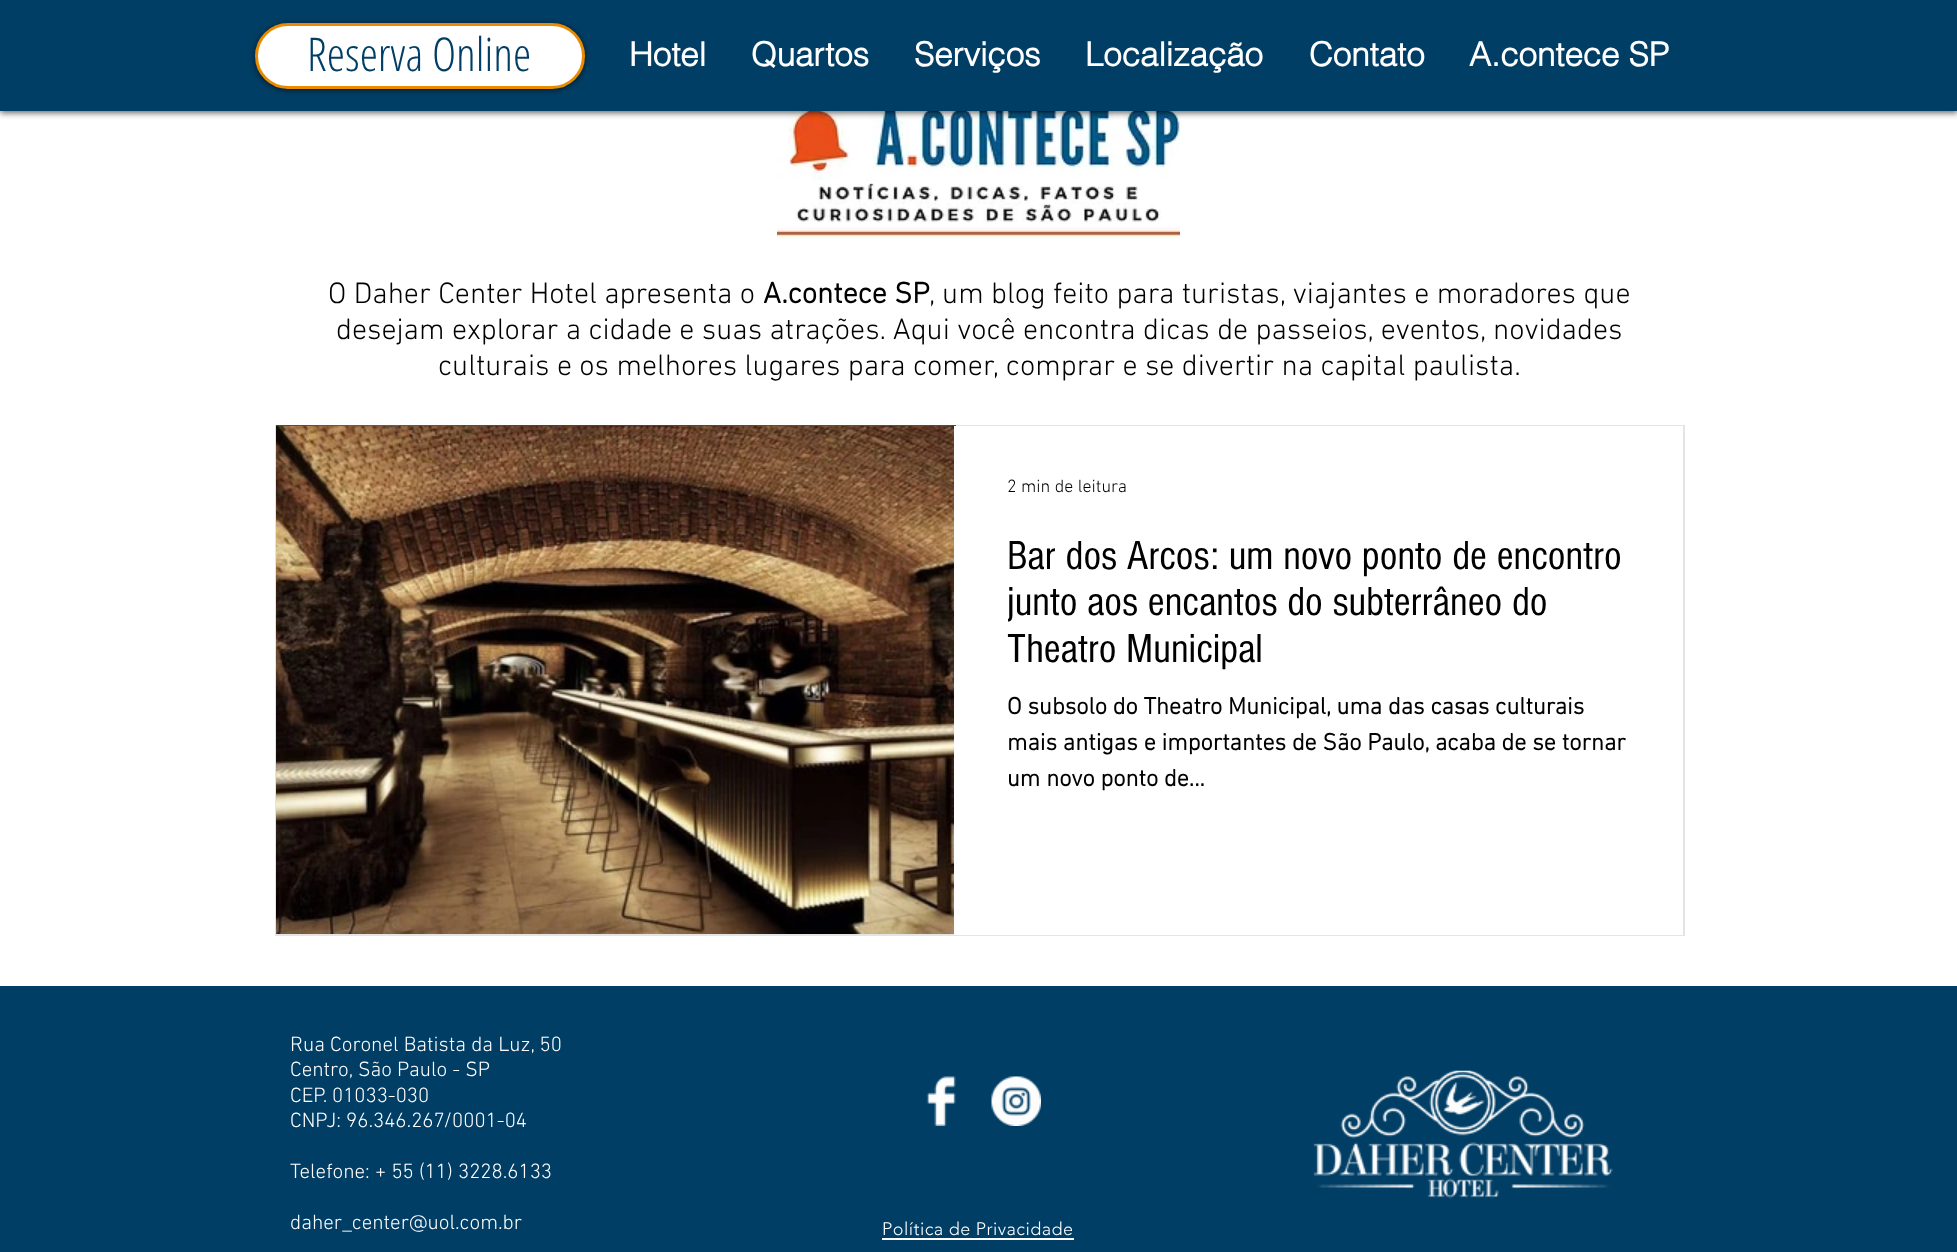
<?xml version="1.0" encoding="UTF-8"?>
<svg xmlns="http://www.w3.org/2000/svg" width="1957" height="1252">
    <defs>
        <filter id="blur1" x="-50%" y="-200%" width="200%" height="500%"><feGaussianBlur stdDeviation="3"/></filter>
        <clipPath id="clip1"><rect x="1008" y="533" width="621" height="139"/></clipPath>
    </defs>
    <rect width="100%" height="100%" fill="#FFFFFF"/>
    <image x="777" y="111" width="404" height="128" href="img_01.png"/>
    <rect x="0" y="2" width="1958" height="111" fill="#000000" fill-opacity="0.6" filter="url(#blur1)"/>
    <rect x="0" y="0" width="1957" height="111" fill="#013E65"/>
    <rect x="255" y="24" width="330" height="66" rx="33" fill="#000000" fill-opacity="0.6" filter="url(#blur1)"/>
    <rect x="256.5" y="24.5" width="327" height="63" rx="31.5" fill="#FFFFFF" stroke="#E88B00" stroke-width="3"/>
    <text x="307" y="71" font-family="Open Sans Condensed" font-size="46.5" font-weight="300" fill="#013E65">Reserva Online</text>
    <text x="629" y="66" font-family="helvetica" font-size="33" font-weight="700" fill="#FFFFFF">Hotel</text>
    <text x="751" y="66" font-family="helvetica" font-size="33" font-weight="700" fill="#FFFFFF">Quartos</text>
    <text x="914" y="66" font-family="helvetica" font-size="33" font-weight="700" fill="#FFFFFF">Serviços</text>
    <text x="1085" y="66" font-family="helvetica" font-size="33" font-weight="700" fill="#FFFFFF">Localização</text>
    <text x="1309" y="66" font-family="helvetica" font-size="33" font-weight="700" fill="#FFFFFF">Contato</text>
    <text x="1469" y="66" font-family="helvetica" font-size="33" font-weight="700" fill="#FFFFFF">A.contece SP</text>
    <text x="328" y="303" font-family="'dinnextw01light'" font-size="30" font-weight="300" fill="#000000">O Daher Center Hotel apresenta o</text>
    <text x="763" y="303" font-family="'dinnextw01light'" font-size="30" font-weight="700" fill="#000000">A.contece SP</text>
    <text x="929" y="303" font-family="'dinnextw01light'" font-size="30" font-weight="300" fill="#000000">, um blog feito para turistas, viajantes e moradores que</text>
    <text x="336" y="339" font-family="'dinnextw01light'" font-size="30" font-weight="300" fill="#000000">desejam explorar a cidade e suas atrações. Aqui você encontra dicas de passeios, eventos, novidades</text>
    <text x="438" y="375" font-family="'dinnextw01light'" font-size="30" font-weight="300" fill="#000000">culturais e os melhores lugares para comer, comprar e se divertir na capital paulista.</text>
    <rect x="276" y="426" width="1408" height="509" fill="none" stroke="#E4E4E4" stroke-width="2"/>
    <image x="276" y="425" width="680" height="1" href="img_02.png"/>
    <image x="276" y="426" width="678" height="508" href="img_03.png"/>
    <rect x="954" y="426" width="729" height="509" fill="#FFFFFF"/>
    <text x="1007" y="492" font-family="'dinnextw01light'" font-size="18" font-weight="300" fill="#000000">2 min de leitura</text>
    <text x="1007" y="569" font-family="'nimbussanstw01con'" font-size="42" fill="#000000">Bar dos Arcos: um novo ponto de encontro</text>
    <g clip-path="url(#clip1)">
        <text x="1007" y="615" font-family="'nimbussanstw01con'" font-size="42" fill="#000000">junto aos encantos do subterrâneo do</text>
    </g>
    <text x="1007" y="662" font-family="'nimbussanstw01con'" font-size="42" fill="#000000">Theatro Municipal</text>
    <text font-family="'dinnextw01light'" font-size="24" font-weight="700" fill="#000000">
        <tspan x="1007" y="714">O subsolo do Theatro Municipal, uma das casas culturais</tspan>
        <tspan x="1007" y="750">mais antigas e importantes de São Paulo, acaba de se tornar</tspan>
        <tspan x="1007" y="786">um novo ponto de...</tspan>
    </text>
    <rect x="0" y="986" width="1957" height="266" fill="#013E65"/>
    <text font-family="'dinnextw01light'" font-size="21" font-weight="300" fill="#FFFFFF">
        <tspan x="290" y="1051">Rua Coronel Batista da Luz, 50</tspan>
        <tspan x="290" y="1076">Centro, São Paulo - SP</tspan>
        <tspan x="290" y="1102">CEP. 01033-030</tspan>
        <tspan x="290" y="1127">CNPJ: 96.346.267/0001-04</tspan>
    </text>
    <text x="290" y="1178" font-family="'dinnextw01light'" font-size="21" font-weight="300" fill="#FFFFFF">Telefone: + 55 (11) 3228.6133</text>
    <text x="290" y="1229" font-family="'dinnextw01light'" font-size="21" font-weight="300" fill="#FFFFFF">daher_center@uol.com.br</text>
    <image x="926" y="1076" width="30" height="50" href="img_04.png"/>
    <image x="991" y="1076" width="50" height="50" href="img_05.png"/>
    <image x="1313" y="1070" width="300" height="129" href="img_06.png"/>
    <text x="882" y="1235" font-family="'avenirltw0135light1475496'" font-size="18" font-weight="300" letter-spacing="0.45" fill="#FFFFFF">Política de Privacidade</text>
    <rect x="882" y="1238" width="192" height="2" fill="#FFFFFF"/>
</svg>
